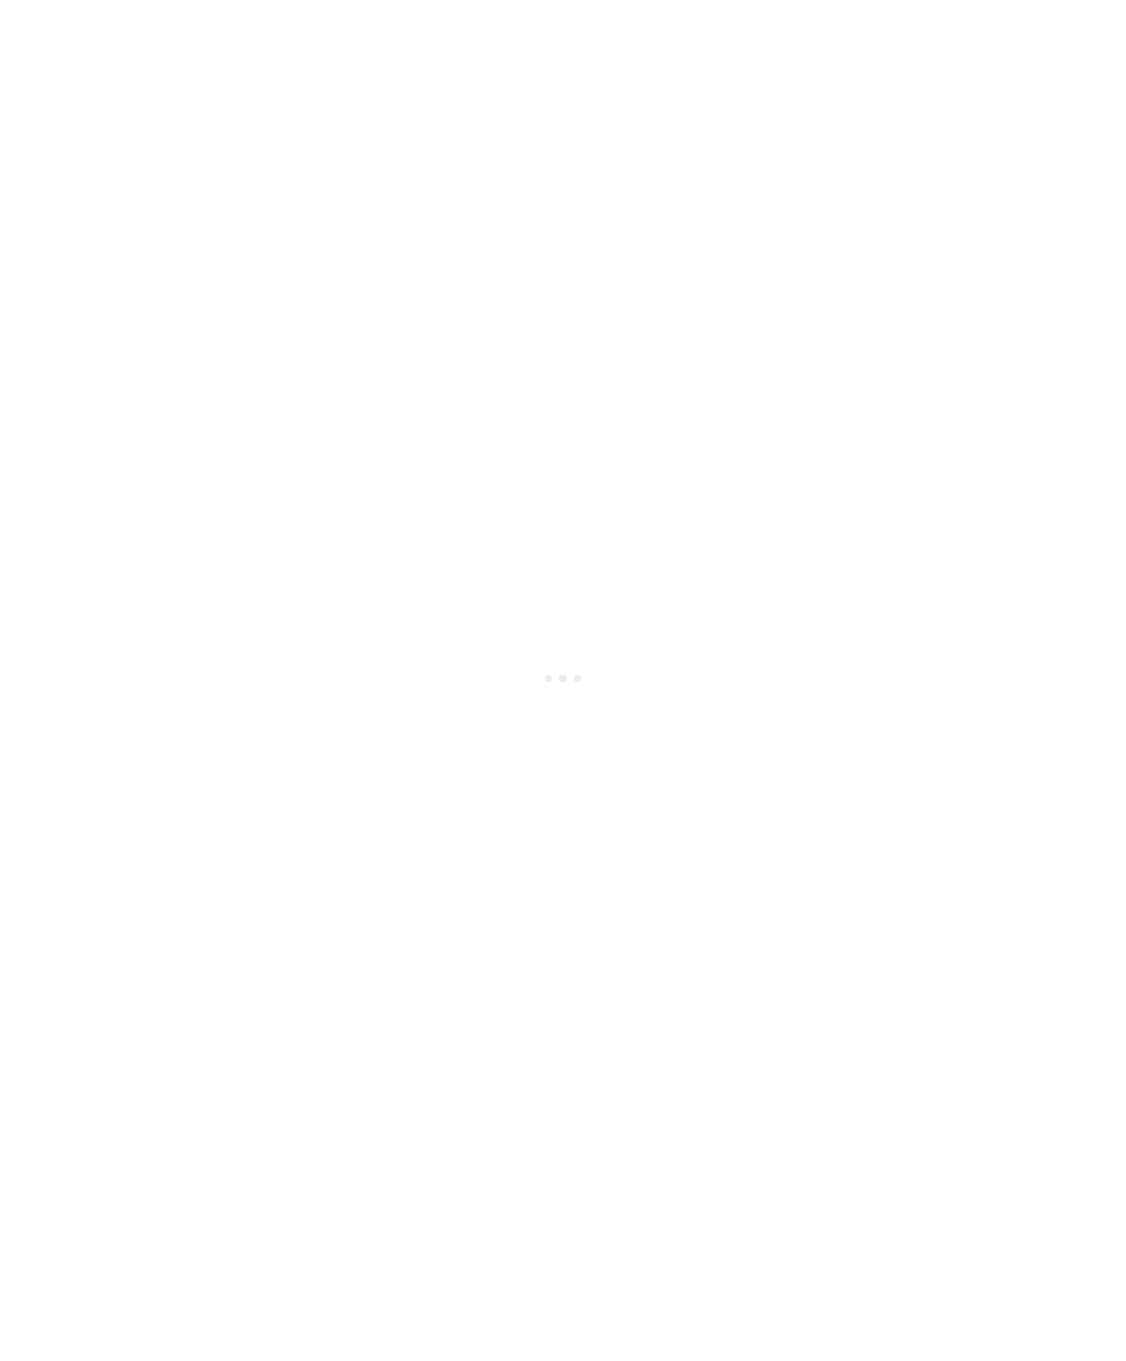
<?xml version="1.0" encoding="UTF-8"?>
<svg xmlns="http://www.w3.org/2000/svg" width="1126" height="1361">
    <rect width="100%" height="100%" fill="#FFFFFF"/>
    <circle cx="548.5" cy="678.5" r="3.5" fill="#ECECEC"/>
    <rect x="559" y="675" width="8" height="7" rx="3.5" fill="#ECECEC"/>
    <circle cx="577.5" cy="678.5" r="3.5" fill="#ECECEC"/>
</svg>
